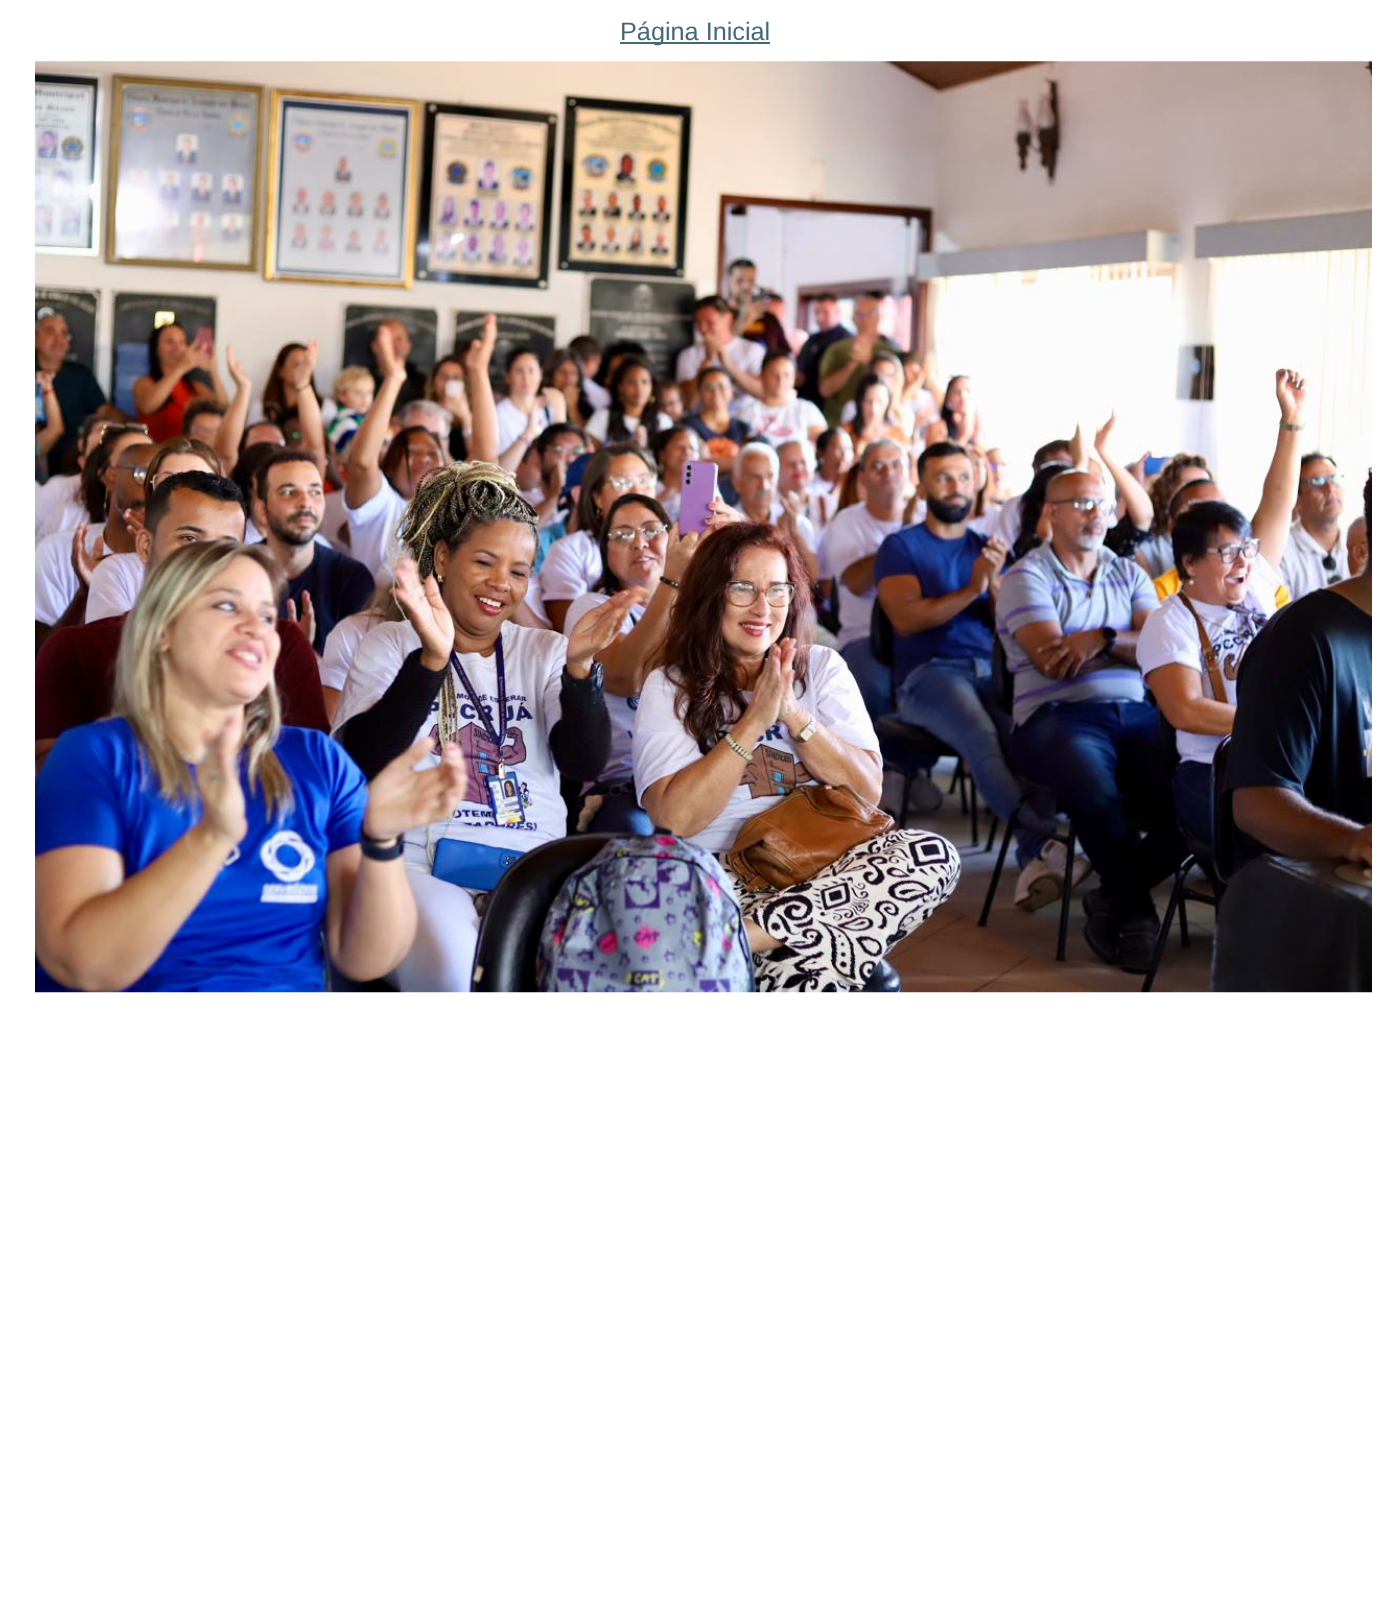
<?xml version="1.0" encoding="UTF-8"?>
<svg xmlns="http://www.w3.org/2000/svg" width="1389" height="1617">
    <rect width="100%" height="100%" fill="#FFFFFF"/>
    <rect x="620" y="42" width="150" height="2" fill="#436976"/>
    <text x="620" y="40" font-family="Liberation Sans" font-size="25.25" fill="#436976">Página Inicial</text>
    <image x="35" y="61" width="1337" height="932" href="img_01.png"/>
</svg>
